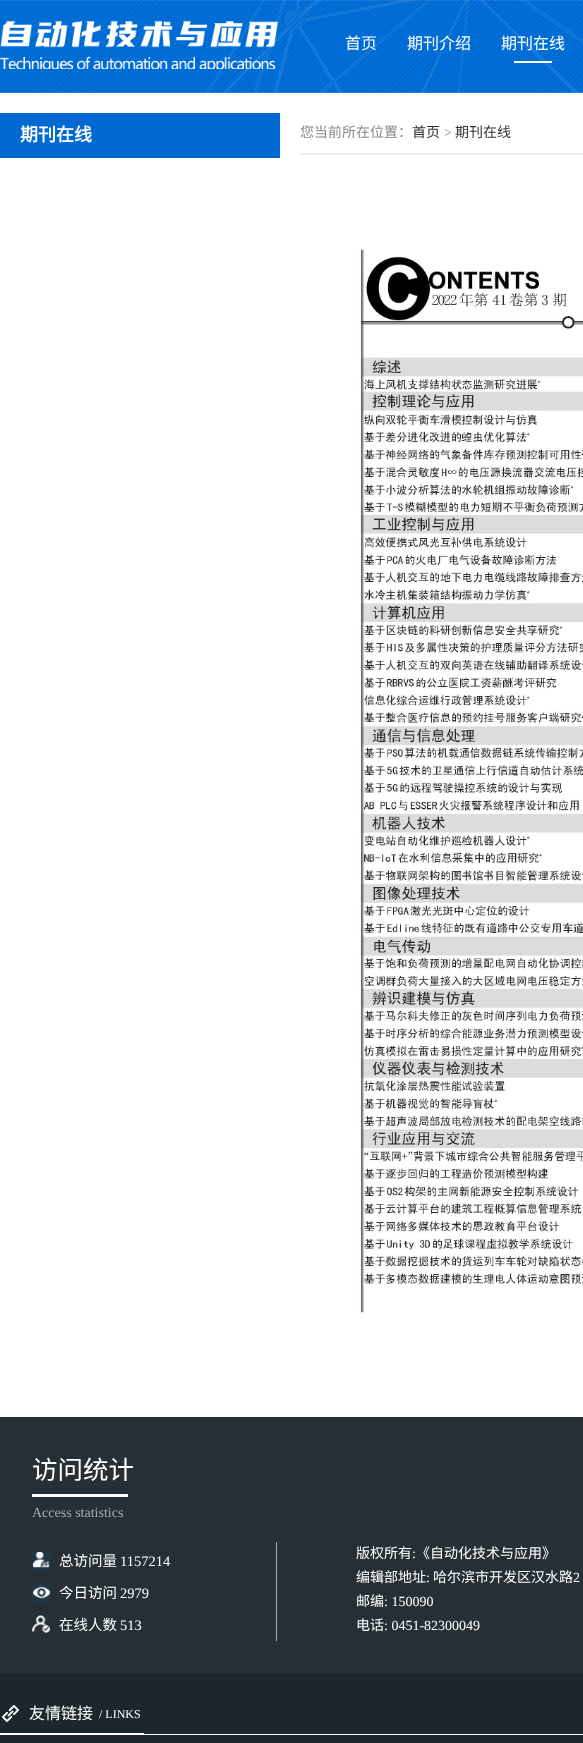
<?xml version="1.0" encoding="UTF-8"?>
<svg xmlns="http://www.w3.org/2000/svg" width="583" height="1743">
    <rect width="100%" height="100%" fill="#FFFFFF"/>
    <image x="0" y="0" width="583" height="93" href="img_01.png"/>
    <image x="0" y="20" width="278" height="49" href="img_02.png"/>
    <text x="345" y="49" font-family="Noto Sans CJK SC" font-size="16" fill="#FFFFFF">首页</text>
    <text x="407" y="49" font-family="Noto Sans CJK SC" font-size="16" fill="#FFFFFF">期刊介绍</text>
    <text x="501" y="49" font-family="Noto Sans CJK SC" font-size="16" fill="#FFFFFF">期刊在线</text>
    <rect x="514" y="61" width="38" height="2" fill="#FFFFFF"/>
    <rect x="0" y="113" width="280" height="45" fill="#016AD2"/>
    <text x="20" y="141" font-family="Noto Sans CJK SC" font-size="18" font-weight="700" fill="#FFFFFF">期刊在线</text>
    <rect x="300" y="153" width="283" height="2" fill="#EFEFEF"/>
    <text x="300" y="137" font-family="Noto Sans CJK SC" font-size="14" fill="#888888">您当前所在位置：</text>
    <text x="412" y="137" font-family="Noto Sans CJK SC" font-size="14" fill="#333333">首页</text>
    <text x="444" y="137" font-family="Liberation Serif" font-size="14" fill="#888888">&gt;</text>
    <text x="455" y="137" font-family="Noto Sans CJK SC" font-size="14" fill="#333333">期刊在线</text>
    <image x="359" y="249" width="224" height="1065" href="img_03.png"/>
    <rect x="0" y="1417" width="583" height="256" fill="#252F35"/>
    <text x="32" y="1479" font-family="Noto Sans CJK SC" font-size="25.5" fill="#FFFFFF">访问统计</text>
    <rect x="32" y="1494" width="96" height="3" fill="#FFFFFF"/>
    <text x="32" y="1517" font-family="Liberation Serif" font-size="14" fill="#AAACAE">Access statistics</text>
    <image x="32" y="1551" width="19" height="19" href="img_04.png"/>
    <text x="59" y="1566" font-family="Noto Sans CJK SC" font-size="14.5" fill="#FFFFFF">总访问量</text>
    <text x="120" y="1566" font-family="Liberation Serif" font-size="14.5" fill="#FFFFFF">1157214</text>
    <image x="32" y="1583" width="19" height="19" href="img_05.png"/>
    <text x="59" y="1598" font-family="Noto Sans CJK SC" font-size="14.5" fill="#FFFFFF">今日访问</text>
    <text x="120" y="1598" font-family="Liberation Serif" font-size="14.5" fill="#FFFFFF">2979</text>
    <image x="32" y="1615" width="19" height="19" href="img_06.png"/>
    <text x="59" y="1630" font-family="Noto Sans CJK SC" font-size="14.5" fill="#FFFFFF">在线人数</text>
    <text x="120" y="1630" font-family="Liberation Serif" font-size="14.5" fill="#FFFFFF">513</text>
    <rect x="276" y="1542" width="1" height="99" fill="#AAAAAA"/>
    <text x="356" y="1558" font-family="Noto Sans CJK SC" font-size="14" fill="#FFFFFF">版权所有</text>
    <text x="412" y="1558" font-family="Liberation Serif" font-size="14" fill="#FFFFFF">:</text>
    <text x="416" y="1558" font-family="Noto Sans CJK SC" font-size="14" fill="#FFFFFF">《自动化技术与应用》</text>
    <text x="356" y="1582" font-family="Noto Sans CJK SC" font-size="14" fill="#FFFFFF">编辑部地址</text>
    <text x="426" y="1582" font-family="Liberation Serif" font-size="14" fill="#FFFFFF">:</text>
    <text x="433" y="1582" font-family="Noto Sans CJK SC" font-size="14" fill="#FFFFFF">哈尔滨市开发区汉水路</text>
    <text x="573" y="1582" font-family="Liberation Serif" font-size="14" fill="#FFFFFF">2</text>
    <text x="356" y="1606" font-family="Noto Sans CJK SC" font-size="14" fill="#FFFFFF">邮编</text>
    <text x="384" y="1606" font-family="Liberation Serif" font-size="14" fill="#FFFFFF">: 150090</text>
    <text x="356" y="1630" font-family="Noto Sans CJK SC" font-size="14" fill="#FFFFFF">电话</text>
    <text x="384" y="1630" font-family="Liberation Serif" font-size="14" fill="#FFFFFF">: 0451-82300049</text>
    <rect x="0" y="1673" width="583" height="70" fill="#1B262D"/>
    <image x="2" y="1705" width="17" height="17" href="img_07.png"/>
    <text x="29" y="1719" font-family="Noto Sans CJK SC" font-size="16" fill="#FFFFFF">友情链接</text>
    <text x="99" y="1718" font-family="Liberation Serif" font-size="12" fill="#FFFFFF">/ LINKS</text>
    <rect x="144" y="1734" width="439" height="1" fill="#FFFFFF"/>
    <rect x="0" y="1733" width="144" height="2" fill="#FFFFFF"/>
</svg>
